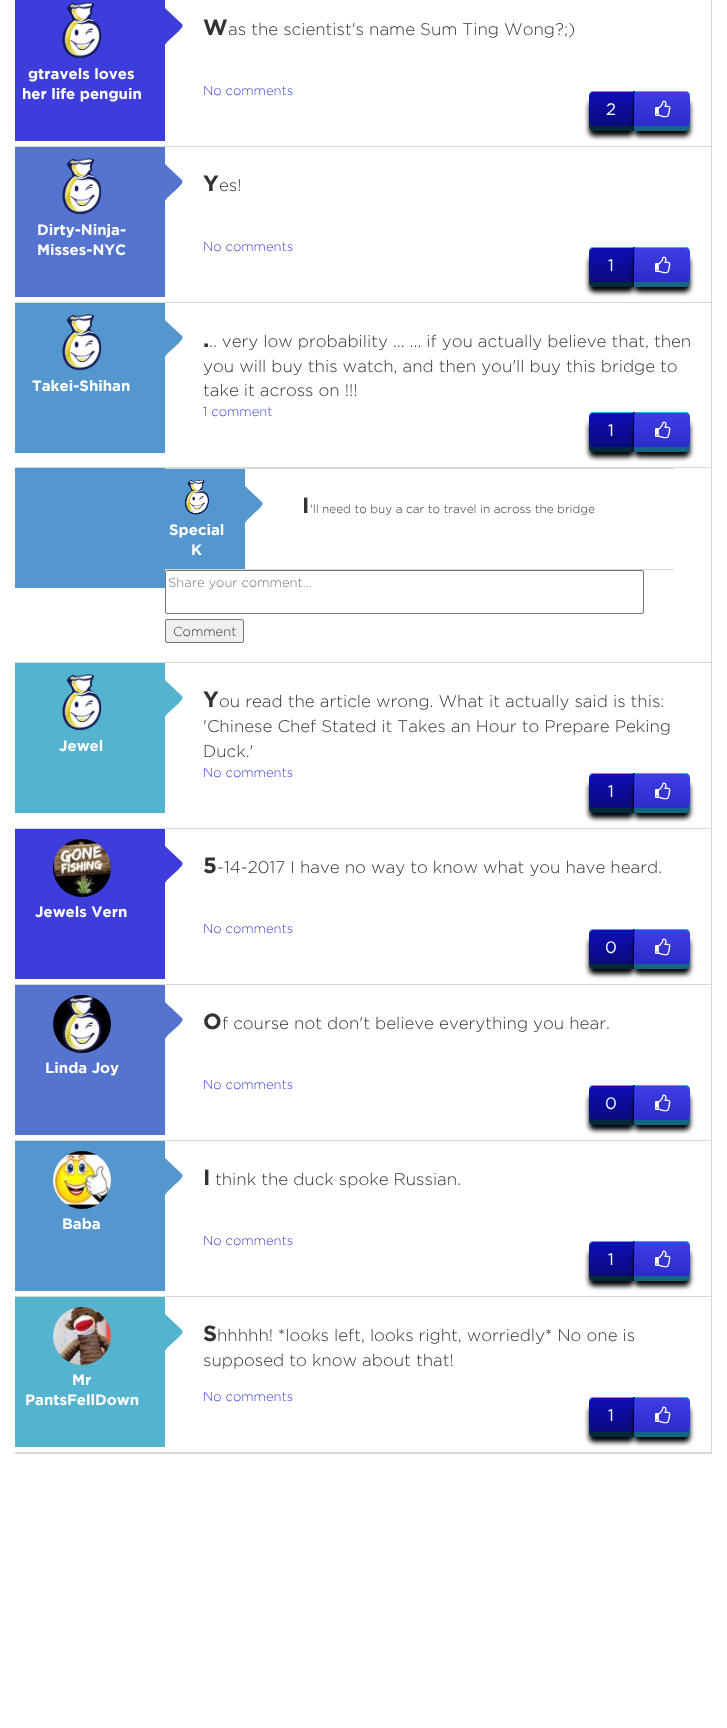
<?xml version="1.0" encoding="UTF-8"?>
<svg xmlns="http://www.w3.org/2000/svg" width="727" height="1728">
    <defs>
        <filter id="blur1" x="-50%" y="-200%" width="200%" height="500%"><feGaussianBlur stdDeviation="2.5"/></filter>
        <linearGradient id="g1" gradientUnits="userSpaceOnUse" x1="589" y1="126" x2="589" y2="91"><stop offset="0" stop-color="#0A0A7D"/><stop offset="1" stop-color="#0E0EB8"/></linearGradient>
        <linearGradient id="g2" gradientUnits="userSpaceOnUse" x1="635" y1="126" x2="635" y2="91"><stop offset="0" stop-color="#2C2CCC"/><stop offset="1" stop-color="#3E3EE5"/></linearGradient>
        <linearGradient id="g3" gradientUnits="userSpaceOnUse" x1="589" y1="282" x2="589" y2="247"><stop offset="0" stop-color="#0A0A7D"/><stop offset="1" stop-color="#0E0EB8"/></linearGradient>
        <linearGradient id="g4" gradientUnits="userSpaceOnUse" x1="635" y1="282" x2="635" y2="247"><stop offset="0" stop-color="#2C2CCC"/><stop offset="1" stop-color="#3E3EE5"/></linearGradient>
        <linearGradient id="g5" gradientUnits="userSpaceOnUse" x1="589" y1="447" x2="589" y2="412"><stop offset="0" stop-color="#0A0A7D"/><stop offset="1" stop-color="#0E0EB8"/></linearGradient>
        <linearGradient id="g6" gradientUnits="userSpaceOnUse" x1="635" y1="447" x2="635" y2="412"><stop offset="0" stop-color="#2C2CCC"/><stop offset="1" stop-color="#3E3EE5"/></linearGradient>
        <linearGradient id="g7" gradientUnits="userSpaceOnUse" x1="589" y1="808" x2="589" y2="773"><stop offset="0" stop-color="#0A0A7D"/><stop offset="1" stop-color="#0E0EB8"/></linearGradient>
        <linearGradient id="g8" gradientUnits="userSpaceOnUse" x1="635" y1="808" x2="635" y2="773"><stop offset="0" stop-color="#2C2CCC"/><stop offset="1" stop-color="#3E3EE5"/></linearGradient>
        <linearGradient id="g9" gradientUnits="userSpaceOnUse" x1="589" y1="964" x2="589" y2="929"><stop offset="0" stop-color="#0A0A7D"/><stop offset="1" stop-color="#0E0EB8"/></linearGradient>
        <linearGradient id="g10" gradientUnits="userSpaceOnUse" x1="635" y1="964" x2="635" y2="929"><stop offset="0" stop-color="#2C2CCC"/><stop offset="1" stop-color="#3E3EE5"/></linearGradient>
        <linearGradient id="g11" gradientUnits="userSpaceOnUse" x1="589" y1="1120" x2="589" y2="1085"><stop offset="0" stop-color="#0A0A7D"/><stop offset="1" stop-color="#0E0EB8"/></linearGradient>
        <linearGradient id="g12" gradientUnits="userSpaceOnUse" x1="635" y1="1120" x2="635" y2="1085"><stop offset="0" stop-color="#2C2CCC"/><stop offset="1" stop-color="#3E3EE5"/></linearGradient>
        <linearGradient id="g13" gradientUnits="userSpaceOnUse" x1="589" y1="1276" x2="589" y2="1241"><stop offset="0" stop-color="#0A0A7D"/><stop offset="1" stop-color="#0E0EB8"/></linearGradient>
        <linearGradient id="g14" gradientUnits="userSpaceOnUse" x1="635" y1="1276" x2="635" y2="1241"><stop offset="0" stop-color="#2C2CCC"/><stop offset="1" stop-color="#3E3EE5"/></linearGradient>
        <linearGradient id="g15" gradientUnits="userSpaceOnUse" x1="589" y1="1432" x2="589" y2="1397"><stop offset="0" stop-color="#0A0A7D"/><stop offset="1" stop-color="#0E0EB8"/></linearGradient>
        <linearGradient id="g16" gradientUnits="userSpaceOnUse" x1="635" y1="1432" x2="635" y2="1397"><stop offset="0" stop-color="#2C2CCC"/><stop offset="1" stop-color="#3E3EE5"/></linearGradient>
    </defs>
    <rect width="100%" height="100%" fill="#FFFFFF"/>
    <rect x="711" y="0" width="1" height="1453" fill="#D7D9D4"/>
    <rect x="15" y="0" width="150" height="141" fill="#3D3DDC"/>
    <path d="M 182 24 C 184 27 180 29 179 31 L 167 42 C 166 44 163 48 161 45 C 159 44 160 39 160 38 V 8 C 161 3 166 9 167 10 Z" fill="#3D3DDC"/>
    <image x="62" y="2" width="40" height="57" href="img_01.png"/>
    <text x="28" y="79" font-family="Gotham" font-size="15" font-weight="700" fill="#FFFFFF">gtravels loves</text>
    <text x="22" y="99" font-family="Gotham" font-size="15" font-weight="700" fill="#FFFFFF">her life penguin</text>
    <text x="203" y="35" font-family="Gotham" font-size="22" font-weight="700" fill="#333333">W</text>
    <text x="228" y="35" font-family="Gotham" font-size="16.9" font-weight="300" fill="#333333">as the scientist's name Sum Ting Wong?;)</text>
    <text x="203" y="95" font-family="Gotham" font-size="13" font-weight="300" fill="#4142DD">No comments</text>
    <rect x="589" y="101" width="45" height="35" rx="5" fill="#000000" filter="url(#blur1)"/>
    <path d="M 589 121 V 126 C 589 129 591 131 594 131 H 634 V 126 H 594 C 591 126 589 124 589 121 Z" fill="#032B3A"/>
    <path d="M 594 91 H 634 V 126 H 594 C 591 126 589 124 589 121 V 96 C 589 93 591 91 594 91 Z" fill="url(#g1)"/>
    <path d="M 594 92 H 633 V 91 H 594 C 591 91 589 93 589 96 V 97 C 589 94 591 92 594 92 Z" fill="#2AB7EC"/>
    <rect x="633" y="91" width="1" height="35" fill="#07076E"/>
    <text x="606" y="115" font-family="'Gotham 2'" font-size="16" font-weight="700" fill="#FFFFFF">2</text>
    <rect x="634" y="101" width="56" height="35" rx="5" fill="#000000" filter="url(#blur1)"/>
    <path d="M 634 126 V 131 H 685 C 688 131 690 129 690 126 V 121 C 690 124 688 126 685 126 Z" fill="#156785"/>
    <path d="M 634 91 H 685 C 688 91 690 93 690 96 V 121 C 690 124 688 126 685 126 H 634 Z" fill="url(#g2)"/>
    <path d="M 635 92 H 685 C 688 92 690 94 690 97 V 96 C 690 93 688 91 685 91 H 635 Z" fill="#2AB7EC"/>
    <rect x="634" y="91" width="1" height="35" fill="#2A2AEC"/>
    <image x="655" y="100" width="16" height="18" href="img_02.png"/>
    <rect x="15" y="146" width="697" height="1" fill="#D7D9D4"/>
    <rect x="15" y="147" width="150" height="150" fill="#5474CF"/>
    <path d="M 182 180 C 184 183 180 185 179 187 L 167 198 C 166 200 163 204 161 201 C 159 200 160 195 160 194 V 164 C 161 159 166 165 167 166 Z" fill="#5474CF"/>
    <image x="62" y="158" width="40" height="57" href="img_03.png"/>
    <text font-family="Gotham" font-size="15" font-weight="700" fill="#FFFFFF">
        <tspan x="37" y="235">Dirty-Ninja-</tspan>
        <tspan x="37" y="255">Misses-NYC</tspan>
    </text>
    <text x="203" y="191" font-family="Gotham" font-size="22" font-weight="700" fill="#333333">Y</text>
    <text x="219" y="191" font-family="Gotham" font-size="16.9" font-weight="300" fill="#333333">es!</text>
    <text x="203" y="251" font-family="Gotham" font-size="13" font-weight="300" fill="#4142DD">No comments</text>
    <rect x="589" y="257" width="45" height="35" rx="5" fill="#000000" filter="url(#blur1)"/>
    <path d="M 589 277 V 282 C 589 285 591 287 594 287 H 634 V 282 H 594 C 591 282 589 280 589 277 Z" fill="#032B3A"/>
    <path d="M 594 247 H 634 V 282 H 594 C 591 282 589 280 589 277 V 252 C 589 249 591 247 594 247 Z" fill="url(#g3)"/>
    <path d="M 594 248 H 633 V 247 H 594 C 591 247 589 249 589 252 V 253 C 589 250 591 248 594 248 Z" fill="#2AB7EC"/>
    <rect x="633" y="247" width="1" height="35" fill="#07076E"/>
    <text x="608" y="271" font-family="'Gotham 2'" font-size="16" font-weight="700" fill="#FFFFFF">1</text>
    <rect x="634" y="257" width="56" height="35" rx="5" fill="#000000" filter="url(#blur1)"/>
    <path d="M 634 282 V 287 H 685 C 688 287 690 285 690 282 V 277 C 690 280 688 282 685 282 Z" fill="#156785"/>
    <path d="M 634 247 H 685 C 688 247 690 249 690 252 V 277 C 690 280 688 282 685 282 H 634 Z" fill="url(#g4)"/>
    <path d="M 635 248 H 685 C 688 248 690 250 690 253 V 252 C 690 249 688 247 685 247 H 635 Z" fill="#2AB7EC"/>
    <rect x="634" y="247" width="1" height="35" fill="#2A2AEC"/>
    <image x="655" y="256" width="16" height="18" href="img_02.png"/>
    <rect x="15" y="302" width="697" height="1" fill="#D7D9D4"/>
    <rect x="15" y="303" width="150" height="150" fill="#5497CF"/>
    <path d="M 182 336 C 184 339 180 341 179 343 L 167 354 C 166 356 163 360 161 357 C 159 356 160 351 160 350 V 320 C 161 315 166 321 167 322 Z" fill="#5497CF"/>
    <image x="62" y="314" width="40" height="57" href="img_04.png"/>
    <text x="32" y="391" font-family="Gotham" font-size="15" font-weight="700" fill="#FFFFFF">Takei-Shihan</text>
    <text x="203" y="347" font-family="Gotham" font-size="22" font-weight="700" fill="#333333">.</text>
    <text x="209" y="347" font-family="Gotham" font-size="16.9" font-weight="300" fill="#333333">.. very low probability ... ... if you actually believe that, then</text>
    <text font-family="Gotham" font-size="16.9" font-weight="300" fill="#333333">
        <tspan x="203" y="372">you will buy this watch, and then you'll buy this bridge to</tspan>
        <tspan x="203" y="396">take it across on !!!</tspan>
    </text>
    <text x="203" y="416" font-family="Gotham" font-size="13" font-weight="300" fill="#4142DD">1 comment</text>
    <rect x="589" y="422" width="45" height="35" rx="5" fill="#000000" filter="url(#blur1)"/>
    <path d="M 589 442 V 447 C 589 450 591 452 594 452 H 634 V 447 H 594 C 591 447 589 445 589 442 Z" fill="#032B3A"/>
    <path d="M 594 412 H 634 V 447 H 594 C 591 447 589 445 589 442 V 417 C 589 414 591 412 594 412 Z" fill="url(#g5)"/>
    <path d="M 594 413 H 633 V 412 H 594 C 591 412 589 414 589 417 V 418 C 589 415 591 413 594 413 Z" fill="#2AB7EC"/>
    <rect x="633" y="412" width="1" height="35" fill="#07076E"/>
    <text x="608" y="436" font-family="'Gotham 2'" font-size="16" font-weight="700" fill="#FFFFFF">1</text>
    <rect x="634" y="422" width="56" height="35" rx="5" fill="#000000" filter="url(#blur1)"/>
    <path d="M 634 447 V 452 H 685 C 688 452 690 450 690 447 V 442 C 690 445 688 447 685 447 Z" fill="#156785"/>
    <path d="M 634 412 H 685 C 688 412 690 414 690 417 V 442 C 690 445 688 447 685 447 H 634 Z" fill="url(#g6)"/>
    <path d="M 635 413 H 685 C 688 413 690 415 690 418 V 417 C 690 414 688 412 685 412 H 635 Z" fill="#2AB7EC"/>
    <rect x="634" y="412" width="1" height="35" fill="#2A2AEC"/>
    <image x="655" y="421" width="16" height="18" href="img_02.png"/>
    <rect x="15" y="467" width="697" height="1" fill="#D7D9D4"/>
    <rect x="15" y="468" width="150" height="120" fill="#5497CF"/>
    <rect x="165" y="569" width="509" height="1" fill="#D7D9D4"/>
    <rect x="165" y="468" width="509" height="1" fill="#D7D9D4"/>
    <text x="302" y="513" font-family="Gotham" font-size="22" font-weight="700" fill="#333333">I</text>
    <text x="310" y="513" font-family="Gotham" font-size="11.8" font-weight="300" fill="#333333">'ll need to buy a car to travel in across the bridge</text>
    <rect x="165" y="469" width="80" height="100" fill="#5497CF"/>
    <image x="184" y="479" width="25" height="36" href="img_05.png"/>
    <path d="M 262 502 C 264 505 260 507 259 509 L 247 520 C 246 522 243 526 241 523 C 239 522 240 517 240 516 V 486 C 241 481 246 487 247 488 Z" fill="#5497CF"/>
    <text x="169" y="535" font-family="Gotham" font-size="15" font-weight="700" fill="#FFFFFF">Special</text>
    <text x="191" y="555" font-family="Gotham" font-size="15" font-weight="700" fill="#FFFFFF">K</text>
    <rect x="165.5" y="570.5" width="478" height="43" rx="1.5" fill="none" stroke="#767676"/>
    <text x="168" y="587" font-family="Gotham" font-size="13" font-weight="300" fill="#757575">Share your comment...</text>
    <rect x="165.5" y="619.5" width="78" height="23" rx="1.5" fill="#EFEFEF" stroke="#767676"/>
    <text x="173" y="636" font-family="Gotham" font-size="13" font-weight="300" fill="#333333">Comment</text>
    <rect x="15" y="662" width="697" height="1" fill="#D7D9D4"/>
    <rect x="15" y="663" width="150" height="150" fill="#54B4CF"/>
    <path d="M 182 696 C 184 699 180 701 179 703 L 167 714 C 166 716 163 720 161 717 C 159 716 160 711 160 710 V 680 C 161 675 166 681 167 682 Z" fill="#54B4CF"/>
    <image x="62" y="674" width="40" height="57" href="img_06.png"/>
    <text x="59" y="751" font-family="Gotham" font-size="15" font-weight="700" fill="#FFFFFF">Jewel</text>
    <text x="203" y="707" font-family="Gotham" font-size="22" font-weight="700" fill="#333333">Y</text>
    <text x="219" y="707" font-family="Gotham" font-size="16.9" font-weight="300" fill="#333333">ou read the article wrong. What it actually said is this:</text>
    <text font-family="Gotham" font-size="16.9" font-weight="300" fill="#333333">
        <tspan x="203" y="732">'Chinese Chef Stated it Takes an Hour to Prepare Peking</tspan>
        <tspan x="203" y="757">Duck.'</tspan>
    </text>
    <text x="203" y="777" font-family="Gotham" font-size="13" font-weight="300" fill="#4142DD">No comments</text>
    <rect x="589" y="783" width="45" height="35" rx="5" fill="#000000" filter="url(#blur1)"/>
    <path d="M 589 803 V 808 C 589 811 591 813 594 813 H 634 V 808 H 594 C 591 808 589 806 589 803 Z" fill="#032B3A"/>
    <path d="M 594 773 H 634 V 808 H 594 C 591 808 589 806 589 803 V 778 C 589 775 591 773 594 773 Z" fill="url(#g7)"/>
    <path d="M 594 774 H 633 V 773 H 594 C 591 773 589 775 589 778 V 779 C 589 776 591 774 594 774 Z" fill="#2AB7EC"/>
    <rect x="633" y="773" width="1" height="35" fill="#07076E"/>
    <text x="608" y="797" font-family="'Gotham 2'" font-size="16" font-weight="700" fill="#FFFFFF">1</text>
    <rect x="634" y="783" width="56" height="35" rx="5" fill="#000000" filter="url(#blur1)"/>
    <path d="M 634 808 V 813 H 685 C 688 813 690 811 690 808 V 803 C 690 806 688 808 685 808 Z" fill="#156785"/>
    <path d="M 634 773 H 685 C 688 773 690 775 690 778 V 803 C 690 806 688 808 685 808 H 634 Z" fill="url(#g8)"/>
    <path d="M 635 774 H 685 C 688 774 690 776 690 779 V 778 C 690 775 688 773 685 773 H 635 Z" fill="#2AB7EC"/>
    <rect x="634" y="773" width="1" height="35" fill="#2A2AEC"/>
    <image x="655" y="782" width="16" height="18" href="img_02.png"/>
    <rect x="15" y="828" width="697" height="1" fill="#D7D9D4"/>
    <rect x="15" y="829" width="150" height="150" fill="#3D3DDC"/>
    <path d="M 182 862 C 184 865 180 867 179 869 L 167 880 C 166 882 163 886 161 883 C 159 882 160 877 160 876 V 846 C 161 841 166 847 167 848 Z" fill="#3D3DDC"/>
    <image x="53" y="839" width="58" height="58" href="img_07.png"/>
    <text x="35" y="917" font-family="Gotham" font-size="15" font-weight="700" fill="#FFFFFF">Jewels Vern</text>
    <text x="203" y="873" font-family="Gotham" font-size="22" font-weight="700" fill="#333333">5</text>
    <text x="217" y="873" font-family="Gotham" font-size="16.9" font-weight="300" fill="#333333">-14-2017 I have no way to know what you have heard.</text>
    <text x="203" y="933" font-family="Gotham" font-size="13" font-weight="300" fill="#4142DD">No comments</text>
    <rect x="589" y="939" width="45" height="35" rx="5" fill="#000000" filter="url(#blur1)"/>
    <path d="M 589 959 V 964 C 589 967 591 969 594 969 H 634 V 964 H 594 C 591 964 589 962 589 959 Z" fill="#032B3A"/>
    <path d="M 594 929 H 634 V 964 H 594 C 591 964 589 962 589 959 V 934 C 589 931 591 929 594 929 Z" fill="url(#g9)"/>
    <path d="M 594 930 H 633 V 929 H 594 C 591 929 589 931 589 934 V 935 C 589 932 591 930 594 930 Z" fill="#2AB7EC"/>
    <rect x="633" y="929" width="1" height="35" fill="#07076E"/>
    <text x="605" y="953" font-family="'Gotham 2'" font-size="16" font-weight="700" fill="#FFFFFF">0</text>
    <rect x="634" y="939" width="56" height="35" rx="5" fill="#000000" filter="url(#blur1)"/>
    <path d="M 634 964 V 969 H 685 C 688 969 690 967 690 964 V 959 C 690 962 688 964 685 964 Z" fill="#156785"/>
    <path d="M 634 929 H 685 C 688 929 690 931 690 934 V 959 C 690 962 688 964 685 964 H 634 Z" fill="url(#g10)"/>
    <path d="M 635 930 H 685 C 688 930 690 932 690 935 V 934 C 690 931 688 929 685 929 H 635 Z" fill="#2AB7EC"/>
    <rect x="634" y="929" width="1" height="35" fill="#2A2AEC"/>
    <image x="655" y="938" width="16" height="18" href="img_02.png"/>
    <rect x="15" y="984" width="697" height="1" fill="#D7D9D4"/>
    <rect x="15" y="985" width="150" height="150" fill="#5474CF"/>
    <path d="M 182 1018 C 184 1021 180 1023 179 1025 L 167 1036 C 166 1038 163 1042 161 1039 C 159 1038 160 1033 160 1032 V 1002 C 161 997 166 1003 167 1004 Z" fill="#5474CF"/>
    <image x="53" y="995" width="58" height="58" href="img_08.png"/>
    <text x="45" y="1073" font-family="Gotham" font-size="15" font-weight="700" fill="#FFFFFF">Linda Joy</text>
    <text x="203" y="1029" font-family="Gotham" font-size="22" font-weight="700" fill="#333333">O</text>
    <text x="222" y="1029" font-family="Gotham" font-size="16.9" font-weight="300" fill="#333333">f course not don't believe everything you hear.</text>
    <text x="203" y="1089" font-family="Gotham" font-size="13" font-weight="300" fill="#4142DD">No comments</text>
    <rect x="589" y="1095" width="45" height="35" rx="5" fill="#000000" filter="url(#blur1)"/>
    <path d="M 589 1115 V 1120 C 589 1123 591 1125 594 1125 H 634 V 1120 H 594 C 591 1120 589 1118 589 1115 Z" fill="#032B3A"/>
    <path d="M 594 1085 H 634 V 1120 H 594 C 591 1120 589 1118 589 1115 V 1090 C 589 1087 591 1085 594 1085 Z" fill="url(#g11)"/>
    <path d="M 594 1086 H 633 V 1085 H 594 C 591 1085 589 1087 589 1090 V 1091 C 589 1088 591 1086 594 1086 Z" fill="#2AB7EC"/>
    <rect x="633" y="1085" width="1" height="35" fill="#07076E"/>
    <text x="605" y="1109" font-family="'Gotham 2'" font-size="16" font-weight="700" fill="#FFFFFF">0</text>
    <rect x="634" y="1095" width="56" height="35" rx="5" fill="#000000" filter="url(#blur1)"/>
    <path d="M 634 1120 V 1125 H 685 C 688 1125 690 1123 690 1120 V 1115 C 690 1118 688 1120 685 1120 Z" fill="#156785"/>
    <path d="M 634 1085 H 685 C 688 1085 690 1087 690 1090 V 1115 C 690 1118 688 1120 685 1120 H 634 Z" fill="url(#g12)"/>
    <path d="M 635 1086 H 685 C 688 1086 690 1088 690 1091 V 1090 C 690 1087 688 1085 685 1085 H 635 Z" fill="#2AB7EC"/>
    <rect x="634" y="1085" width="1" height="35" fill="#2A2AEC"/>
    <image x="655" y="1094" width="16" height="18" href="img_02.png"/>
    <rect x="15" y="1140" width="697" height="1" fill="#D7D9D4"/>
    <rect x="15" y="1141" width="150" height="150" fill="#5497CF"/>
    <path d="M 182 1174 C 184 1177 180 1179 179 1181 L 167 1192 C 166 1194 163 1198 161 1195 C 159 1194 160 1189 160 1188 V 1158 C 161 1153 166 1159 167 1160 Z" fill="#5497CF"/>
    <image x="53" y="1151" width="58" height="58" href="img_09.png"/>
    <text x="62" y="1229" font-family="Gotham" font-size="15" font-weight="700" fill="#FFFFFF">Baba</text>
    <text x="203" y="1185" font-family="Gotham" font-size="22" font-weight="700" fill="#333333">I</text>
    <text x="215" y="1185" font-family="Gotham" font-size="16.9" font-weight="300" fill="#333333">think the duck spoke Russian.</text>
    <text x="203" y="1245" font-family="Gotham" font-size="13" font-weight="300" fill="#4142DD">No comments</text>
    <rect x="589" y="1251" width="45" height="35" rx="5" fill="#000000" filter="url(#blur1)"/>
    <path d="M 589 1271 V 1276 C 589 1279 591 1281 594 1281 H 634 V 1276 H 594 C 591 1276 589 1274 589 1271 Z" fill="#032B3A"/>
    <path d="M 594 1241 H 634 V 1276 H 594 C 591 1276 589 1274 589 1271 V 1246 C 589 1243 591 1241 594 1241 Z" fill="url(#g13)"/>
    <path d="M 594 1242 H 633 V 1241 H 594 C 591 1241 589 1243 589 1246 V 1247 C 589 1244 591 1242 594 1242 Z" fill="#2AB7EC"/>
    <rect x="633" y="1241" width="1" height="35" fill="#07076E"/>
    <text x="608" y="1265" font-family="'Gotham 2'" font-size="16" font-weight="700" fill="#FFFFFF">1</text>
    <rect x="634" y="1251" width="56" height="35" rx="5" fill="#000000" filter="url(#blur1)"/>
    <path d="M 634 1276 V 1281 H 685 C 688 1281 690 1279 690 1276 V 1271 C 690 1274 688 1276 685 1276 Z" fill="#156785"/>
    <path d="M 634 1241 H 685 C 688 1241 690 1243 690 1246 V 1271 C 690 1274 688 1276 685 1276 H 634 Z" fill="url(#g14)"/>
    <path d="M 635 1242 H 685 C 688 1242 690 1244 690 1247 V 1246 C 690 1243 688 1241 685 1241 H 635 Z" fill="#2AB7EC"/>
    <rect x="634" y="1241" width="1" height="35" fill="#2A2AEC"/>
    <image x="655" y="1250" width="16" height="18" href="img_02.png"/>
    <rect x="15" y="1296" width="697" height="1" fill="#D7D9D4"/>
    <rect x="15" y="1297" width="150" height="150" fill="#54B4CF"/>
    <path d="M 182 1330 C 184 1333 180 1335 179 1337 L 167 1348 C 166 1350 163 1354 161 1351 C 159 1350 160 1345 160 1344 V 1314 C 161 1309 166 1315 167 1316 Z" fill="#54B4CF"/>
    <image x="53" y="1307" width="58" height="58" href="img_10.png"/>
    <text x="72" y="1385" font-family="Gotham" font-size="15" font-weight="700" fill="#FFFFFF">Mr</text>
    <text x="25" y="1405" font-family="Gotham" font-size="15" font-weight="700" fill="#FFFFFF">PantsFellDown</text>
    <text x="203" y="1341" font-family="Gotham" font-size="22" font-weight="700" fill="#333333">S</text>
    <text x="217" y="1341" font-family="Gotham" font-size="16.9" font-weight="300" fill="#333333">hhhhh! *looks left, looks right, worriedly* No one is</text>
    <text x="203" y="1366" font-family="Gotham" font-size="16.9" font-weight="300" fill="#333333">supposed to know about that!</text>
    <text x="203" y="1401" font-family="Gotham" font-size="13" font-weight="300" fill="#4142DD">No comments</text>
    <rect x="589" y="1407" width="45" height="35" rx="5" fill="#000000" filter="url(#blur1)"/>
    <path d="M 589 1427 V 1432 C 589 1435 591 1437 594 1437 H 634 V 1432 H 594 C 591 1432 589 1430 589 1427 Z" fill="#032B3A"/>
    <path d="M 594 1397 H 634 V 1432 H 594 C 591 1432 589 1430 589 1427 V 1402 C 589 1399 591 1397 594 1397 Z" fill="url(#g15)"/>
    <path d="M 594 1398 H 633 V 1397 H 594 C 591 1397 589 1399 589 1402 V 1403 C 589 1400 591 1398 594 1398 Z" fill="#2AB7EC"/>
    <rect x="633" y="1397" width="1" height="35" fill="#07076E"/>
    <text x="608" y="1421" font-family="'Gotham 2'" font-size="16" font-weight="700" fill="#FFFFFF">1</text>
    <rect x="634" y="1407" width="56" height="35" rx="5" fill="#000000" filter="url(#blur1)"/>
    <path d="M 634 1432 V 1437 H 685 C 688 1437 690 1435 690 1432 V 1427 C 690 1430 688 1432 685 1432 Z" fill="#156785"/>
    <path d="M 634 1397 H 685 C 688 1397 690 1399 690 1402 V 1427 C 690 1430 688 1432 685 1432 H 634 Z" fill="url(#g16)"/>
    <path d="M 635 1398 H 685 C 688 1398 690 1400 690 1403 V 1402 C 690 1399 688 1397 685 1397 H 635 Z" fill="#2AB7EC"/>
    <rect x="634" y="1397" width="1" height="35" fill="#2A2AEC"/>
    <image x="655" y="1406" width="16" height="18" href="img_02.png"/>
    <rect x="15" y="1452" width="697" height="2" fill="#D7D9D4"/>
</svg>
